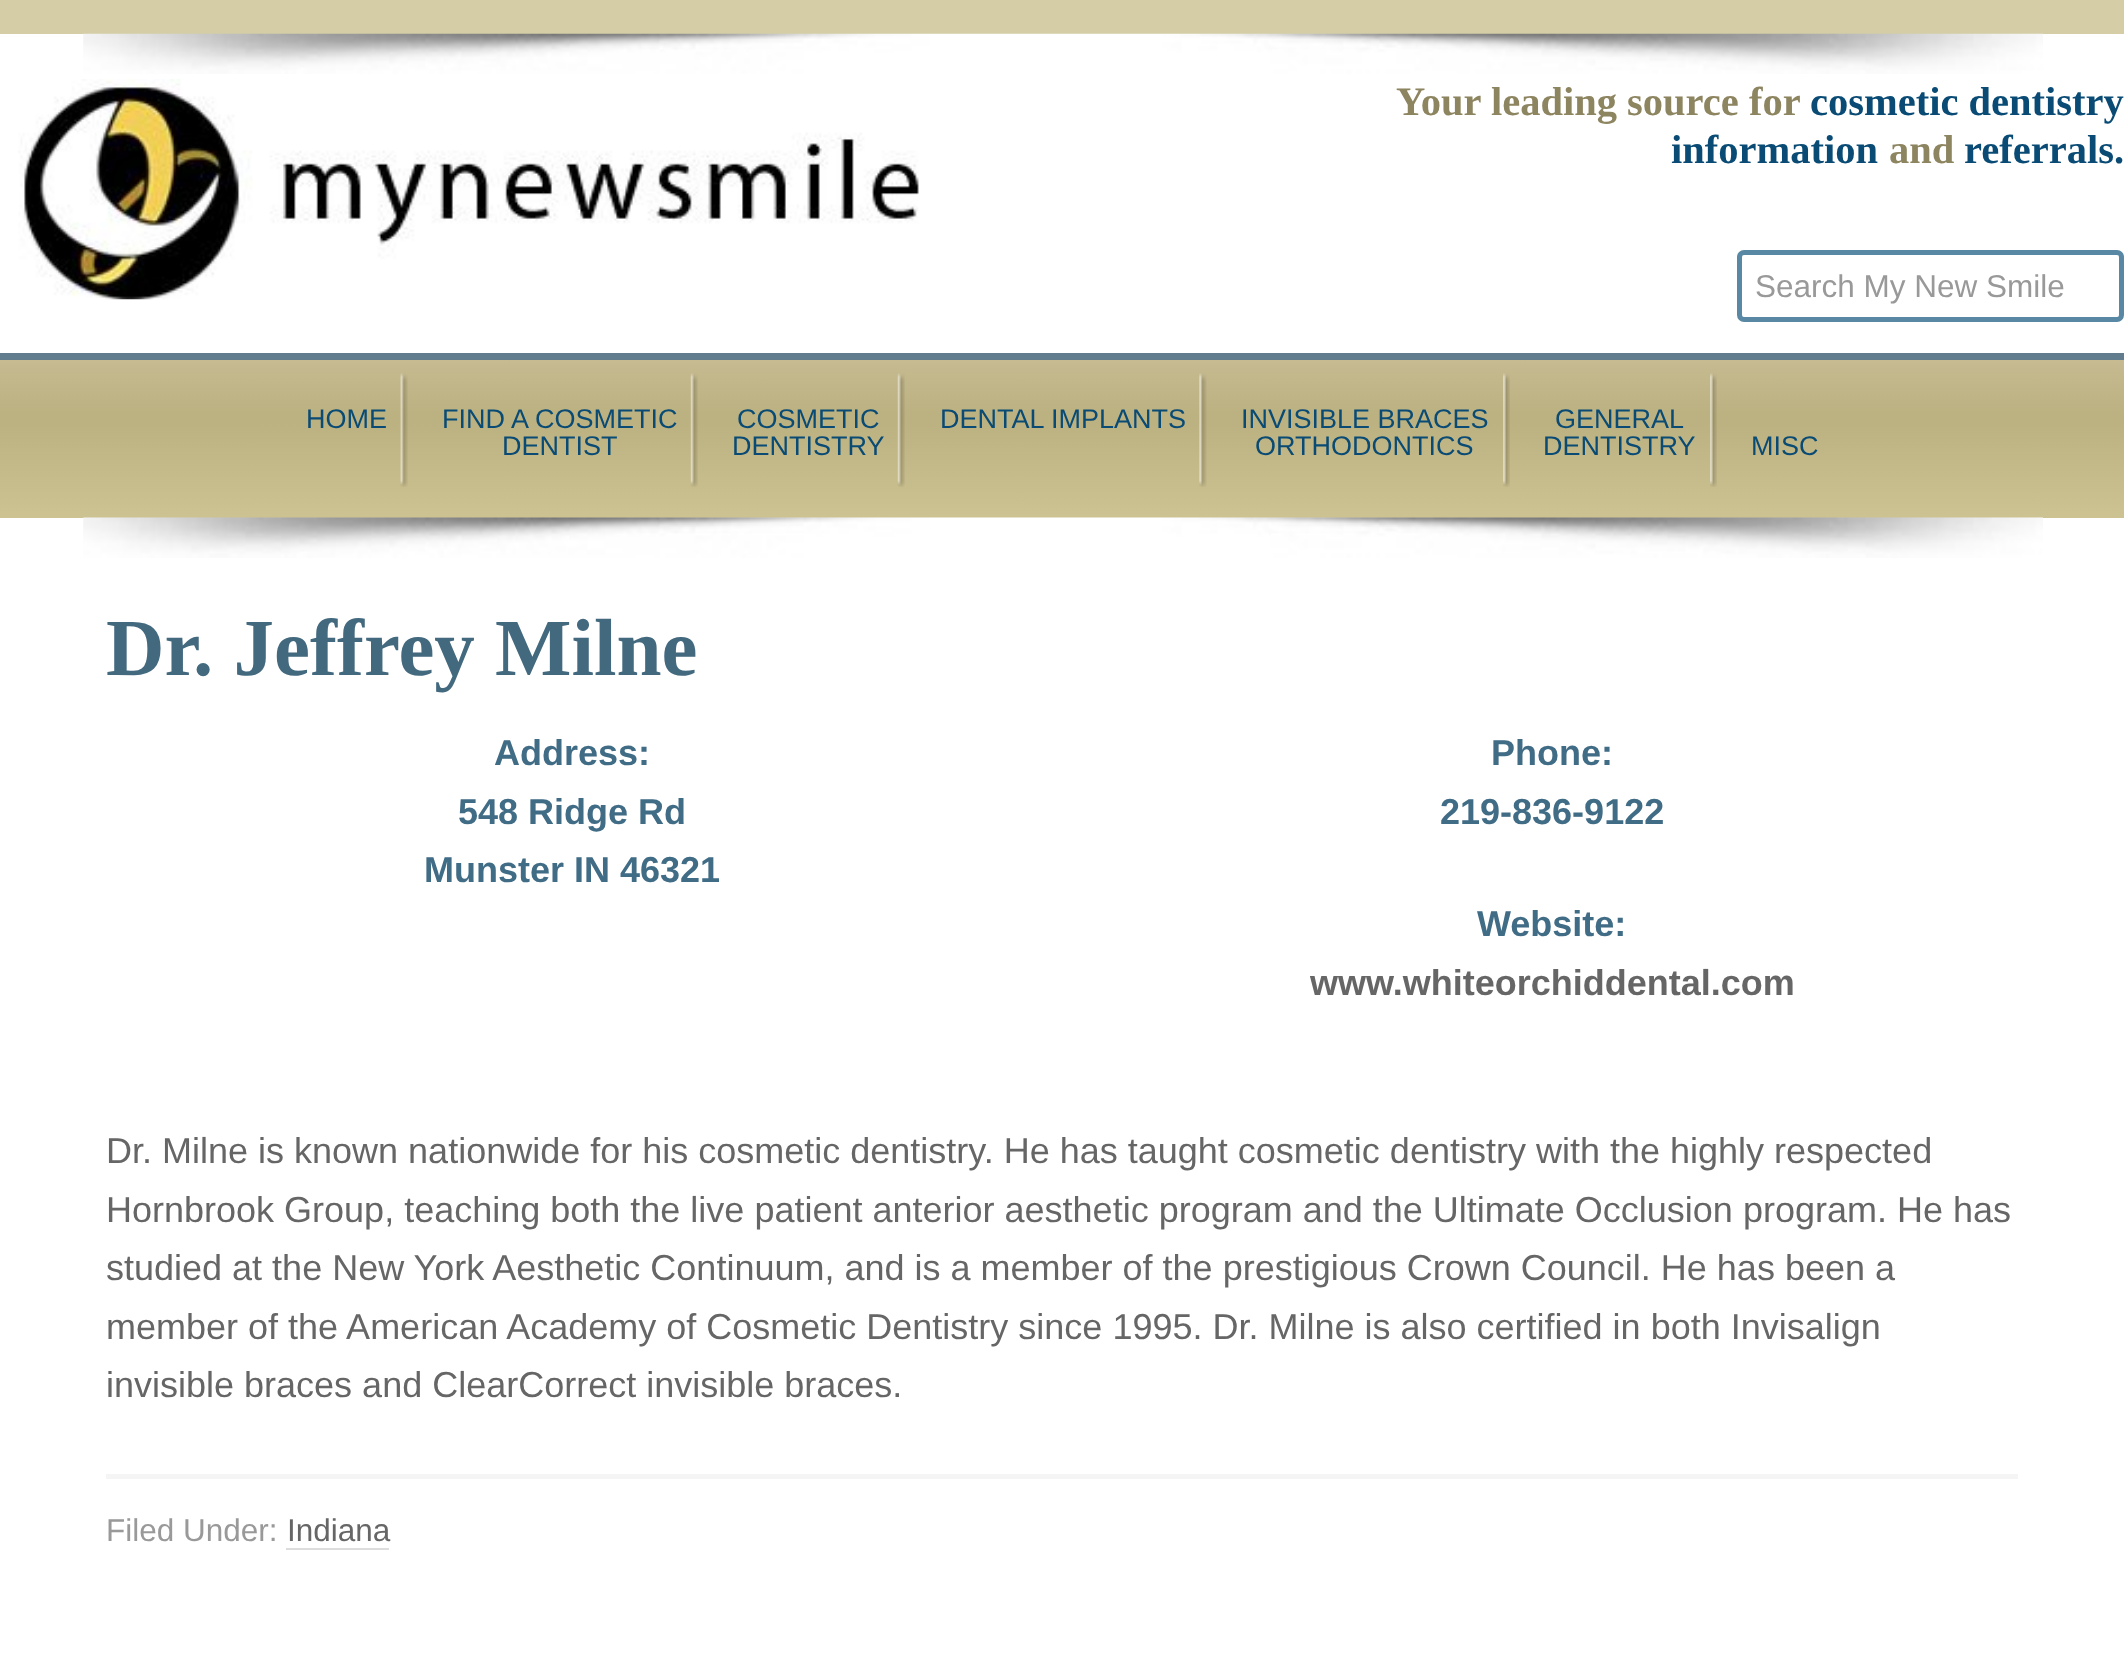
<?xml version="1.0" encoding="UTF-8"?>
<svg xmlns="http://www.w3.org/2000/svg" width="2124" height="1656">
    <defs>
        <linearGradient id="g1" gradientUnits="userSpaceOnUse" x1="1062" y1="360" x2="1062" y2="518"><stop offset="0" stop-color="#C6BB91"/><stop offset="0.34" stop-color="#BCB181"/><stop offset="0.4" stop-color="#BCB181"/><stop offset="1" stop-color="#CCC292"/></linearGradient>
    </defs>
    <rect width="100%" height="100%" fill="#FFFFFF"/>
    <rect x="0" y="0" width="2124" height="34" fill="#D5CDA6"/>
    <image x="83" y="33" width="1960" height="41" href="img_01.png"/>
    <image x="18" y="79" width="901" height="221" href="img_02.png"/>
    <text x="1396" y="115" font-family="Liberation Serif" font-size="40.5" font-weight="700" fill="#8D8460">Your leading source for</text>
    <text x="1810" y="115" font-family="Liberation Serif" font-size="40.5" font-weight="700" fill="#094B74">cosmetic dentistry</text>
    <text x="1671" y="163" font-family="Liberation Serif" font-size="40.5" font-weight="700" fill="#094B74">information</text>
    <text x="1889" y="163" font-family="Liberation Serif" font-size="40.5" font-weight="700" fill="#8D8460">and</text>
    <text x="1964" y="163" font-family="Liberation Serif" font-size="40.5" font-weight="700" fill="#094B74">referrals.</text>
    <rect x="1739.5" y="252.5" width="382" height="67" rx="4.5" fill="none" stroke="#5888A4" stroke-width="5"/>
    <text x="1755" y="297" font-family="Liberation Sans" font-size="31.5" fill="#999999">Search My New Smile</text>
    <rect x="0" y="360" width="2124" height="158" fill="url(#g1)"/>
    <rect x="0" y="353" width="2124" height="7" fill="#607C8D"/>
    <image x="400" y="373" width="8" height="114" href="img_03.png"/>
    <text x="306" y="428" font-family="Liberation Sans" font-size="27" fill="#094B74">HOME</text>
    <image x="690" y="373" width="8" height="114" href="img_04.png"/>
    <text x="442" y="428" font-family="Liberation Sans" font-size="27" fill="#094B74">FIND A COSMETIC</text>
    <text x="502" y="455" font-family="Liberation Sans" font-size="27" fill="#094B74">DENTIST</text>
    <image x="897" y="373" width="8" height="114" href="img_04.png"/>
    <text x="737" y="428" font-family="Liberation Sans" font-size="27" fill="#094B74">COSMETIC</text>
    <text x="732" y="455" font-family="Liberation Sans" font-size="27" fill="#094B74">DENTISTRY</text>
    <image x="1199" y="373" width="8" height="114" href="img_05.png"/>
    <text x="940" y="428" font-family="Liberation Sans" font-size="27" fill="#094B74">DENTAL IMPLANTS</text>
    <image x="1503" y="373" width="7" height="114" href="img_06.png"/>
    <text x="1241" y="428" font-family="Liberation Sans" font-size="27" fill="#094B74">INVISIBLE BRACES</text>
    <text x="1255" y="455" font-family="Liberation Sans" font-size="27" fill="#094B74">ORTHODONTICS</text>
    <image x="1710" y="373" width="7" height="114" href="img_07.png"/>
    <text x="1555" y="428" font-family="Liberation Sans" font-size="27" fill="#094B74">GENERAL</text>
    <text x="1543" y="455" font-family="Liberation Sans" font-size="27" fill="#094B74">DENTISTRY</text>
    <text x="1751" y="455" font-family="Liberation Sans" font-size="27" fill="#094B74">MISC</text>
    <image x="83" y="517" width="1960" height="41" href="img_08.png"/>
    <text x="106" y="675" font-family="Liberation Serif" font-size="81" font-weight="700" fill="#43697F">Dr. Jeffrey Milne</text>
    <text x="494" y="765" font-family="Liberation Sans" font-size="36" font-weight="700" fill="#416C86">Address:</text>
    <text x="458" y="824" font-family="Liberation Sans" font-size="36" font-weight="700" fill="#416C86">548 Ridge Rd</text>
    <text x="424" y="882" font-family="Liberation Sans" font-size="36" font-weight="700" fill="#416C86">Munster IN 46321</text>
    <text x="1491" y="765" font-family="Liberation Sans" font-size="36" font-weight="700" fill="#416C86">Phone:</text>
    <text x="1440" y="824" font-family="Liberation Sans" font-size="36" font-weight="700" fill="#416C86">219-836-9122</text>
    <text x="1477" y="936" font-family="Liberation Sans" font-size="36" font-weight="700" fill="#416C86">Website:</text>
    <text x="1310" y="995" font-family="Liberation Sans" font-size="36" font-weight="700" fill="#666666">www.whiteorchiddental.com</text>
    <text font-family="Liberation Sans" font-size="36" fill="#666666">
        <tspan x="106" y="1163">Dr. Milne is known nationwide for his cosmetic dentistry. He has taught cosmetic dentistry with the highly respected</tspan>
        <tspan x="106" y="1222">Hornbrook Group, teaching both the live patient anterior aesthetic program and the Ultimate Occlusion program. He has</tspan>
        <tspan x="106" y="1280">studied at the New York Aesthetic Continuum, and is a member of the prestigious Crown Council. He has been a</tspan>
        <tspan x="106" y="1339">member of the American Academy of Cosmetic Dentistry since 1995. Dr. Milne is also certified in both Invisalign</tspan>
        <tspan x="106" y="1397">invisible braces and ClearCorrect invisible braces.</tspan>
    </text>
    <rect x="106" y="1474" width="1912" height="5" fill="#F5F5F5"/>
    <text x="106" y="1541" font-family="Liberation Sans" font-size="31.5" fill="#999999">Filed Under:</text>
    <text x="287" y="1541" font-family="Liberation Sans" font-size="31.5" fill="#666666">Indiana</text>
    <rect x="286" y="1548" width="103" height="2" fill="#DDDDDD"/>
</svg>
